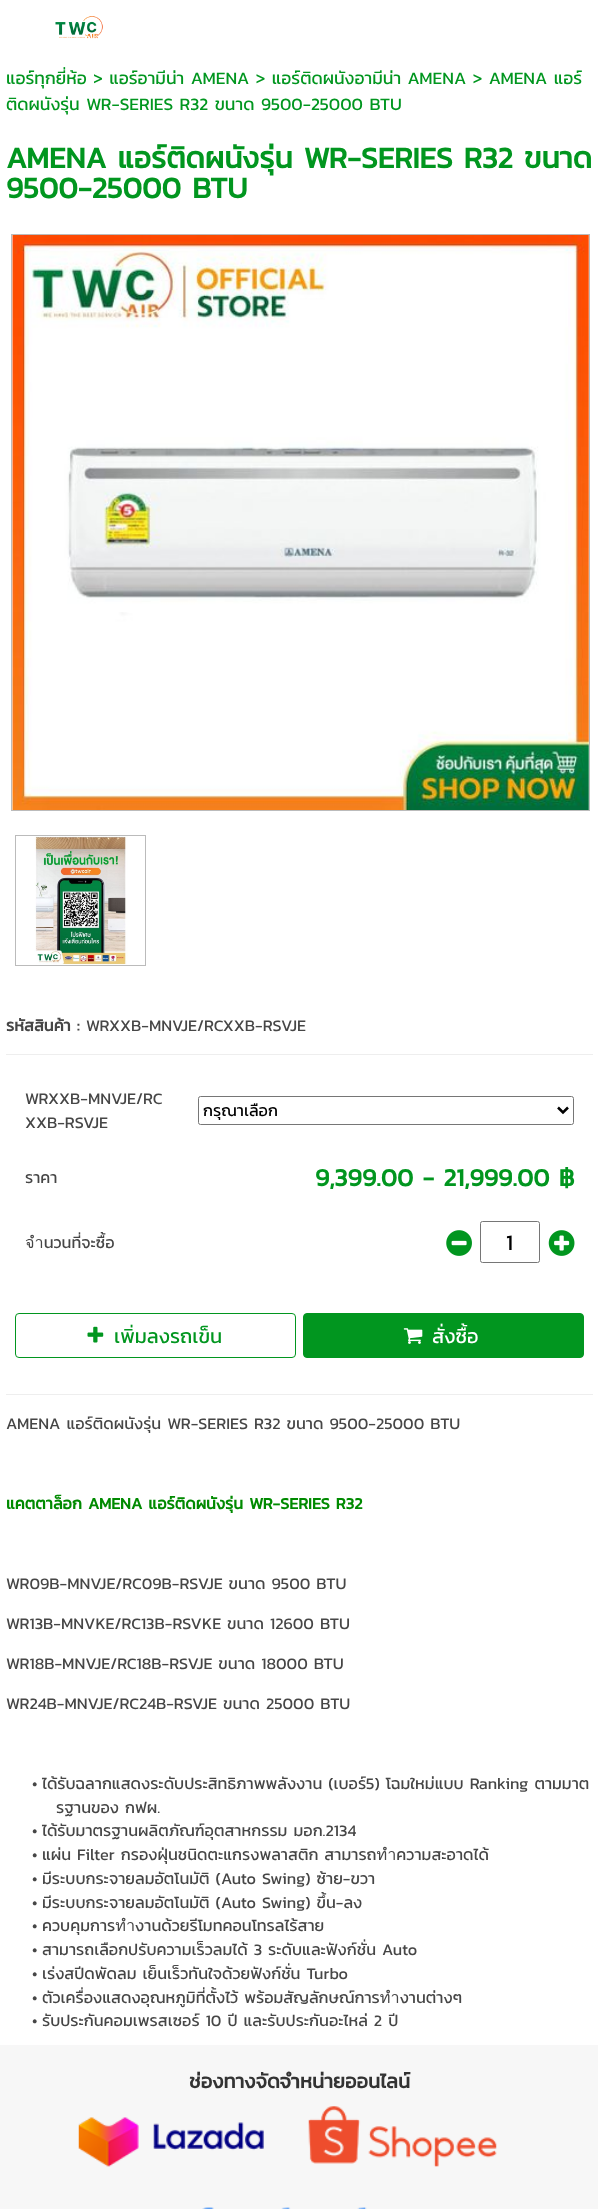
<?xml version="1.0" encoding="UTF-8"?>
<svg xmlns="http://www.w3.org/2000/svg" width="598" height="2209">
    <rect width="100%" height="100%" fill="#FFFFFF"/>
    <image x="55" y="16" width="48" height="23" href="img_01.png"/>
    <text font-family="Kanit" font-size="17.5" fill="#01961F">
        <tspan x="6" y="84">แอร์ทุกยี่ห้อ &gt; แอร์อามีน่า AMENA &gt; แอร์ติดผนังอามีน่า AMENA &gt; AMENA แอร์</tspan>
        <tspan x="6" y="110">ติดผนังรุ่น WR-SERIES R32 ขนาด 9500-25000 BTU</tspan>
    </text>
    <text font-family="Kanit" font-size="30" font-weight="700" fill="#01961F">
        <tspan x="6" y="168">AMENA แอร์ติดผนังรุ่น WR-SERIES R32 ขนาด</tspan>
        <tspan x="6" y="198">9500-25000 BTU</tspan>
    </text>
    <rect x="11.5" y="234.5" width="578" height="576" fill="none" stroke="#BBBBBB"/>
    <image x="12" y="235" width="577" height="575" href="img_02.png"/>
    <rect x="15.5" y="835.5" width="130" height="130" fill="none" stroke="#BBBBBB"/>
    <image x="34" y="836" width="94" height="129" href="img_03.png"/>
    <text x="6" y="1031" font-family="Kanit" font-size="16.25" font-weight="700" fill="#464646">รหัสสินค้า :</text>
    <text x="86" y="1031" font-family="Kanit" font-size="16.25" fill="#464646">WRXXB-MNVJE/RCXXB-RSVJE</text>
    <rect x="6" y="1054" width="587" height="1" fill="#EEEEEE"/>
    <rect x="6" y="1394" width="587" height="1" fill="#EEEEEE"/>
    <text font-family="Kanit" font-size="16.25" fill="#464646">
        <tspan x="25" y="1104">WRXXB-MNVJE/RC</tspan>
        <tspan x="25" y="1128">XXB-RSVJE</tspan>
    </text>
    <rect x="198.5" y="1096.5" width="375" height="28" rx="2" fill="none" stroke="#767676"/>
    <path d="M 558 1107.5 L 563 1112.5 L 568 1107.5" fill="none" stroke="#000000" stroke-width="2.5"/>
    <text x="203" y="1116" font-family="Kanit" font-size="16.25" fill="#000000">กรุณาเลือก</text>
    <text x="25" y="1183" font-family="Kanit" font-size="16.25" fill="#464646">ราคา</text>
    <text x="315" y="1186" font-family="Kanit" font-size="25" font-weight="700" fill="#01961F">9,399.00 - 21,999.00 ฿</text>
    <text x="25" y="1248" font-family="Kanit" font-size="16.25" fill="#464646">จำนวนที่จะซื้อ</text>
    <image x="446" y="1230" width="26" height="26" href="img_04.png"/>
    <rect x="480.5" y="1221.5" width="59" height="41" rx="2" fill="none" stroke="#767676"/>
    <text x="506" y="1250" font-family="Kanit" font-size="22" fill="#000000">1</text>
    <image x="548" y="1230" width="27" height="26" href="img_05.png"/>
    <rect x="15.5" y="1313.5" width="280" height="44" rx="3.5" fill="none" stroke="#01961F"/>
    <image x="87" y="1326" width="17" height="17" href="img_06.png"/>
    <text x="114" y="1343" font-family="Kanit" font-size="20" fill="#01961F">เพิ่มลงรถเข็น</text>
    <rect x="303.5" y="1313.5" width="280" height="44" rx="3.5" fill="#01961F" stroke="#01961F"/>
    <image x="403" y="1328" width="20" height="16" href="img_07.png"/>
    <text x="432" y="1343" font-family="Kanit" font-size="20" fill="#FFFFFF">สั่งซื้อ</text>
    <text x="6" y="1429" font-family="Kanit" font-size="16.25" fill="#464646">AMENA แอร์ติดผนังรุ่น WR-SERIES R32 ขนาด 9500-25000 BTU</text>
    <text x="6" y="1509" font-family="Kanit" font-size="16.25" font-weight="700" fill="#008A00">แคตตาล็อก AMENA แอร์ติดผนังรุ่น WR-SERIES R32</text>
    <text x="6" y="1589" font-family="Kanit" font-size="16.25" fill="#464646">WR09B-MNVJE/RC09B-RSVJE ขนาด 9500 BTU</text>
    <text x="6" y="1629" font-family="Kanit" font-size="16.25" fill="#464646">WR13B-MNVKE/RC13B-RSVKE ขนาด 12600 BTU</text>
    <text x="6" y="1669" font-family="Kanit" font-size="16.25" fill="#464646">WR18B-MNVJE/RC18B-RSVJE ขนาด 18000 BTU</text>
    <text x="6" y="1709" font-family="Kanit" font-size="16.25" fill="#464646">WR24B-MNVJE/RC24B-RSVJE ขนาด 25000 BTU</text>
    <text x="32" y="1789" font-family="Kanit" font-size="16.25" fill="#464646">•</text>
    <text x="42" y="1789" font-family="Kanit" font-size="16.25" fill="#464646">ได้รับฉลากแสดงระดับประสิทธิภาพพลังงาน (เบอร์5) โฉมใหม่แบบ Ranking ตามมาต</text>
    <text x="56" y="1813" font-family="Kanit" font-size="16.25" fill="#464646">รฐานของ กฟผ.</text>
    <text x="32" y="1836" font-family="Kanit" font-size="16.25" fill="#464646">•</text>
    <text x="42" y="1836" font-family="Kanit" font-size="16.25" fill="#464646">ได้รับมาตรฐานผลิตภัณฑ์อุตสาหกรรม มอก.2134</text>
    <text x="32" y="1860" font-family="Kanit" font-size="16.25" fill="#464646">•</text>
    <text x="42" y="1860" font-family="Kanit" font-size="16.25" fill="#464646">แผ่น Filter กรองฝุ่นชนิดตะแกรงพลาสติก สามารถทำความสะอาดได้</text>
    <text x="32" y="1884" font-family="Kanit" font-size="16.25" fill="#464646">•</text>
    <text x="42" y="1884" font-family="Kanit" font-size="16.25" fill="#464646">มีระบบกระจายลมอัตโนมัติ (Auto Swing) ซ้าย-ขวา</text>
    <text x="32" y="1908" font-family="Kanit" font-size="16.25" fill="#464646">•</text>
    <text x="42" y="1908" font-family="Kanit" font-size="16.25" fill="#464646">มีระบบกระจายลมอัตโนมัติ (Auto Swing) ขึ้น-ลง</text>
    <text x="32" y="1931" font-family="Kanit" font-size="16.25" fill="#464646">•</text>
    <text x="42" y="1931" font-family="Kanit" font-size="16.25" fill="#464646">ควบคุมการทำงานด้วยรีโมทคอนโทรลไร้สาย</text>
    <text x="32" y="1955" font-family="Kanit" font-size="16.25" fill="#464646">•</text>
    <text x="42" y="1955" font-family="Kanit" font-size="16.25" fill="#464646">สามารถเลือกปรับความเร็วลมได้ 3 ระดับและฟังก์ชั่น Auto</text>
    <text x="32" y="1979" font-family="Kanit" font-size="16.25" fill="#464646">•</text>
    <text x="42" y="1979" font-family="Kanit" font-size="16.25" fill="#464646">เร่งสปีดพัดลม เย็นเร็วทันใจด้วยฟังก์ชั่น Turbo</text>
    <text x="32" y="2003" font-family="Kanit" font-size="16.25" fill="#464646">•</text>
    <text x="42" y="2003" font-family="Kanit" font-size="16.25" fill="#464646">ตัวเครื่องแสดงอุณหภูมิที่ตั้งไว้ พร้อมสัญลักษณ์การทำงานต่างๆ</text>
    <text x="32" y="2026" font-family="Kanit" font-size="16.25" fill="#464646">•</text>
    <text x="42" y="2026" font-family="Kanit" font-size="16.25" fill="#464646">รับประกันคอมเพรสเซอร์ 10 ปี และรับประกันอะไหล่ 2 ปี</text>
    <rect x="0" y="2045" width="598" height="164" fill="#F7F7F7"/>
    <text x="189" y="2088" font-family="Kanit" font-size="20" font-weight="700" fill="#333333">ช่องทางจัดจำหน่ายออนไลน์</text>
    <image x="78" y="2117" width="186" height="50" href="img_08.png"/>
    <image x="308" y="2106" width="189" height="61" href="img_09.png"/>
    <image x="202" y="2207" width="165" height="2" href="img_10.png"/>
</svg>
